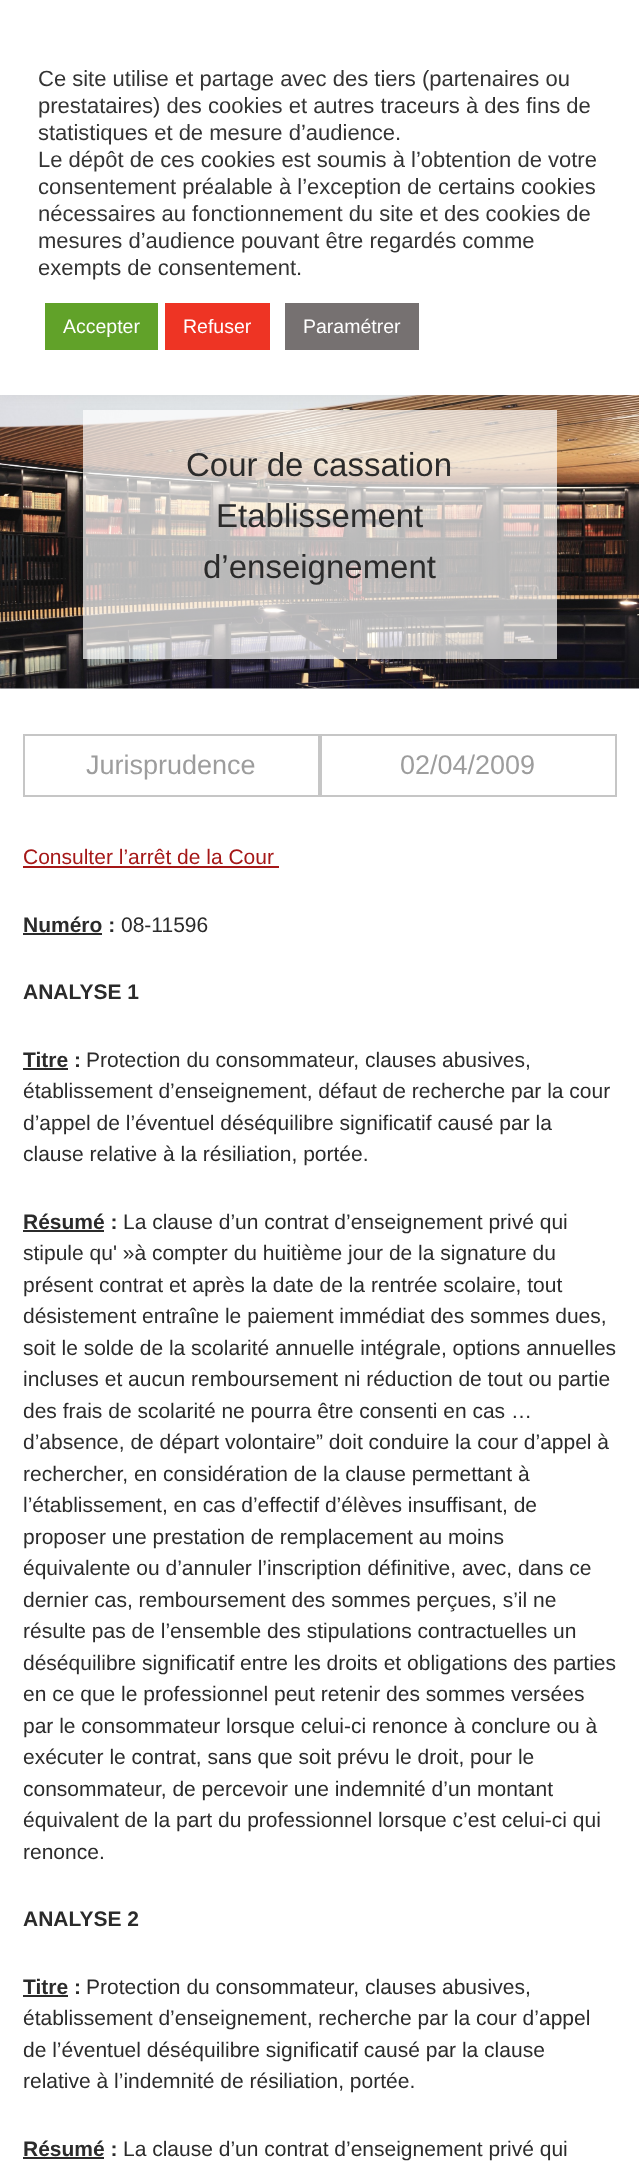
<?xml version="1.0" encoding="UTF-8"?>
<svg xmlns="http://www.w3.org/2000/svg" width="639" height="2168">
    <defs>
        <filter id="blur1" x="-50%" y="-200%" width="200%" height="500%"><feGaussianBlur stdDeviation="7.5"/></filter>
    </defs>
    <rect width="100%" height="100%" fill="#FFFFFF"/>
    <image x="0" y="395" width="639" height="294" href="img_01.png"/>
    <rect x="83" y="410" width="474" height="249" fill="#FFFFFF" fill-opacity="0.7"/>
    <rect x="0" y="-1" width="639" height="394" fill="#ACABAB" fill-opacity="0.3" filter="url(#blur1)"/>
    <rect x="0" y="0" width="639" height="395" fill="#FFFFFF"/>
    <text font-family="Liberation Sans" font-size="22" fill="#333333">
        <tspan x="38" y="86">Ce site utilise et partage avec des tiers (partenaires ou</tspan>
        <tspan x="38" y="113">prestataires) des cookies et autres traceurs à des fins de</tspan>
        <tspan x="38" y="140">statistiques et de mesure d’audience.</tspan>
        <tspan x="38" y="167">Le dépôt de ces cookies est soumis à l’obtention de votre</tspan>
        <tspan x="38" y="194">consentement préalable à l’exception de certains cookies</tspan>
        <tspan x="38" y="221">nécessaires au fonctionnement du site et des cookies de</tspan>
        <tspan x="38" y="248">mesures d’audience pouvant être regardés comme</tspan>
        <tspan x="38" y="275">exempts de consentement.</tspan>
    </text>
    <rect x="45" y="303" width="113" height="47" fill="#61A229"/>
    <text x="63" y="333" font-family="Liberation Sans" font-size="19.5" fill="#FFFFFF">Accepter</text>
    <rect x="165" y="303" width="105" height="47" fill="#EE3424"/>
    <text x="183" y="333" font-family="Liberation Sans" font-size="19.5" fill="#FFFFFF">Refuser</text>
    <rect x="285" y="303" width="134" height="47" fill="#767171"/>
    <text x="303" y="333" font-family="Liberation Sans" font-size="19.5" fill="#FFFFFF">Paramétrer</text>
    <text x="186" y="476" font-family="Liberation Sans" font-size="33" fill="#2B2B2B">Cour de cassation</text>
    <text x="216" y="527" font-family="Liberation Sans" font-size="33" fill="#2B2B2B">Etablissement</text>
    <text x="203" y="578" font-family="Liberation Sans" font-size="33" fill="#2B2B2B">d’enseignement</text>
    <rect x="24" y="735" width="295" height="61" fill="none" stroke="#C6C6C6" stroke-width="2"/>
    <text x="86" y="774" font-family="Liberation Sans" font-size="27" fill="#9D9D9D">Jurisprudence</text>
    <rect x="321" y="735" width="295" height="61" fill="none" stroke="#C6C6C6" stroke-width="2"/>
    <text x="400" y="774" font-family="Liberation Sans" font-size="27" fill="#9D9D9D">02/04/2009</text>
    <text x="23" y="864" font-family="Liberation Sans" font-size="21" fill="#A51717">Consulter l’arrêt de la Cour</text>
    <rect x="23" y="866" width="256" height="2" fill="#A51717"/>
    <text x="23" y="932" font-family="Liberation Sans" font-size="21" font-weight="700" fill="#2B2B2B">Numéro :</text>
    <rect x="23" y="933" width="79" height="2" fill="#2B2B2B"/>
    <text x="121" y="932" font-family="Liberation Sans" font-size="21" fill="#2B2B2B">08-11596</text>
    <text x="23" y="999" font-family="Liberation Sans" font-size="21" font-weight="700" fill="#2B2B2B">ANALYSE 1</text>
    <text x="23" y="1067" font-family="Liberation Sans" font-size="21" font-weight="700" fill="#2B2B2B">Titre :</text>
    <rect x="23" y="1068" width="45" height="2" fill="#2B2B2B"/>
    <text x="86" y="1067" font-family="Liberation Sans" font-size="21" fill="#2B2B2B">Protection du consommateur, clauses abusives,</text>
    <text font-family="Liberation Sans" font-size="21" fill="#2B2B2B">
        <tspan x="23" y="1098">établissement d’enseignement, défaut de recherche par la cour</tspan>
        <tspan x="23" y="1130">d’appel de l’éventuel déséquilibre significatif causé par la</tspan>
        <tspan x="23" y="1161">clause relative à la résiliation, portée.</tspan>
    </text>
    <text x="23" y="1229" font-family="Liberation Sans" font-size="21" font-weight="700" fill="#2B2B2B">Résumé :</text>
    <rect x="23" y="1230" width="81" height="2" fill="#2B2B2B"/>
    <text x="123" y="1229" font-family="Liberation Sans" font-size="21" fill="#2B2B2B">La clause d’un contrat d’enseignement privé qui</text>
    <text font-family="Liberation Sans" font-size="21" fill="#2B2B2B">
        <tspan x="23" y="1260">stipule qu' »à compter du huitième jour de la signature du</tspan>
        <tspan x="23" y="1292">présent contrat et après la date de la rentrée scolaire, tout</tspan>
        <tspan x="23" y="1323">désistement entraîne le paiement immédiat des sommes dues,</tspan>
        <tspan x="23" y="1355">soit le solde de la scolarité annuelle intégrale, options annuelles</tspan>
        <tspan x="23" y="1386">incluses et aucun remboursement ni réduction de tout ou partie</tspan>
        <tspan x="23" y="1418">des frais de scolarité ne pourra être consenti en cas …</tspan>
        <tspan x="23" y="1449">d’absence, de départ volontaire” doit conduire la cour d’appel à</tspan>
        <tspan x="23" y="1481">rechercher, en considération de la clause permettant à</tspan>
        <tspan x="23" y="1512">l’établissement, en cas d’effectif d’élèves insuffisant, de</tspan>
        <tspan x="23" y="1544">proposer une prestation de remplacement au moins</tspan>
        <tspan x="23" y="1575">équivalente ou d’annuler l’inscription définitive, avec, dans ce</tspan>
        <tspan x="23" y="1607">dernier cas, remboursement des sommes perçues, s’il ne</tspan>
        <tspan x="23" y="1638">résulte pas de l’ensemble des stipulations contractuelles un</tspan>
        <tspan x="23" y="1670">déséquilibre significatif entre les droits et obligations des parties</tspan>
        <tspan x="23" y="1701">en ce que le professionnel peut retenir des sommes versées</tspan>
        <tspan x="23" y="1733">par le consommateur lorsque celui-ci renonce à conclure ou à</tspan>
        <tspan x="23" y="1764">exécuter le contrat, sans que soit prévu le droit, pour le</tspan>
        <tspan x="23" y="1796">consommateur, de percevoir une indemnité d’un montant</tspan>
        <tspan x="23" y="1827">équivalent de la part du professionnel lorsque c’est celui-ci qui</tspan>
        <tspan x="23" y="1859">renonce.</tspan>
    </text>
    <text x="23" y="1926" font-family="Liberation Sans" font-size="21" font-weight="700" fill="#2B2B2B">ANALYSE 2</text>
    <text x="23" y="1994" font-family="Liberation Sans" font-size="21" font-weight="700" fill="#2B2B2B">Titre :</text>
    <rect x="23" y="1995" width="45" height="2" fill="#2B2B2B"/>
    <text x="86" y="1994" font-family="Liberation Sans" font-size="21" fill="#2B2B2B">Protection du consommateur, clauses abusives,</text>
    <text font-family="Liberation Sans" font-size="21" fill="#2B2B2B">
        <tspan x="23" y="2025">établissement d’enseignement, recherche par la cour d’appel</tspan>
        <tspan x="23" y="2057">de l’éventuel déséquilibre significatif causé par la clause</tspan>
        <tspan x="23" y="2088">relative à l’indemnité de résiliation, portée.</tspan>
    </text>
    <text x="23" y="2156" font-family="Liberation Sans" font-size="21" font-weight="700" fill="#2B2B2B">Résumé :</text>
    <rect x="23" y="2157" width="81" height="2" fill="#2B2B2B"/>
    <text x="123" y="2156" font-family="Liberation Sans" font-size="21" fill="#2B2B2B">La clause d’un contrat d’enseignement privé qui</text>
</svg>
